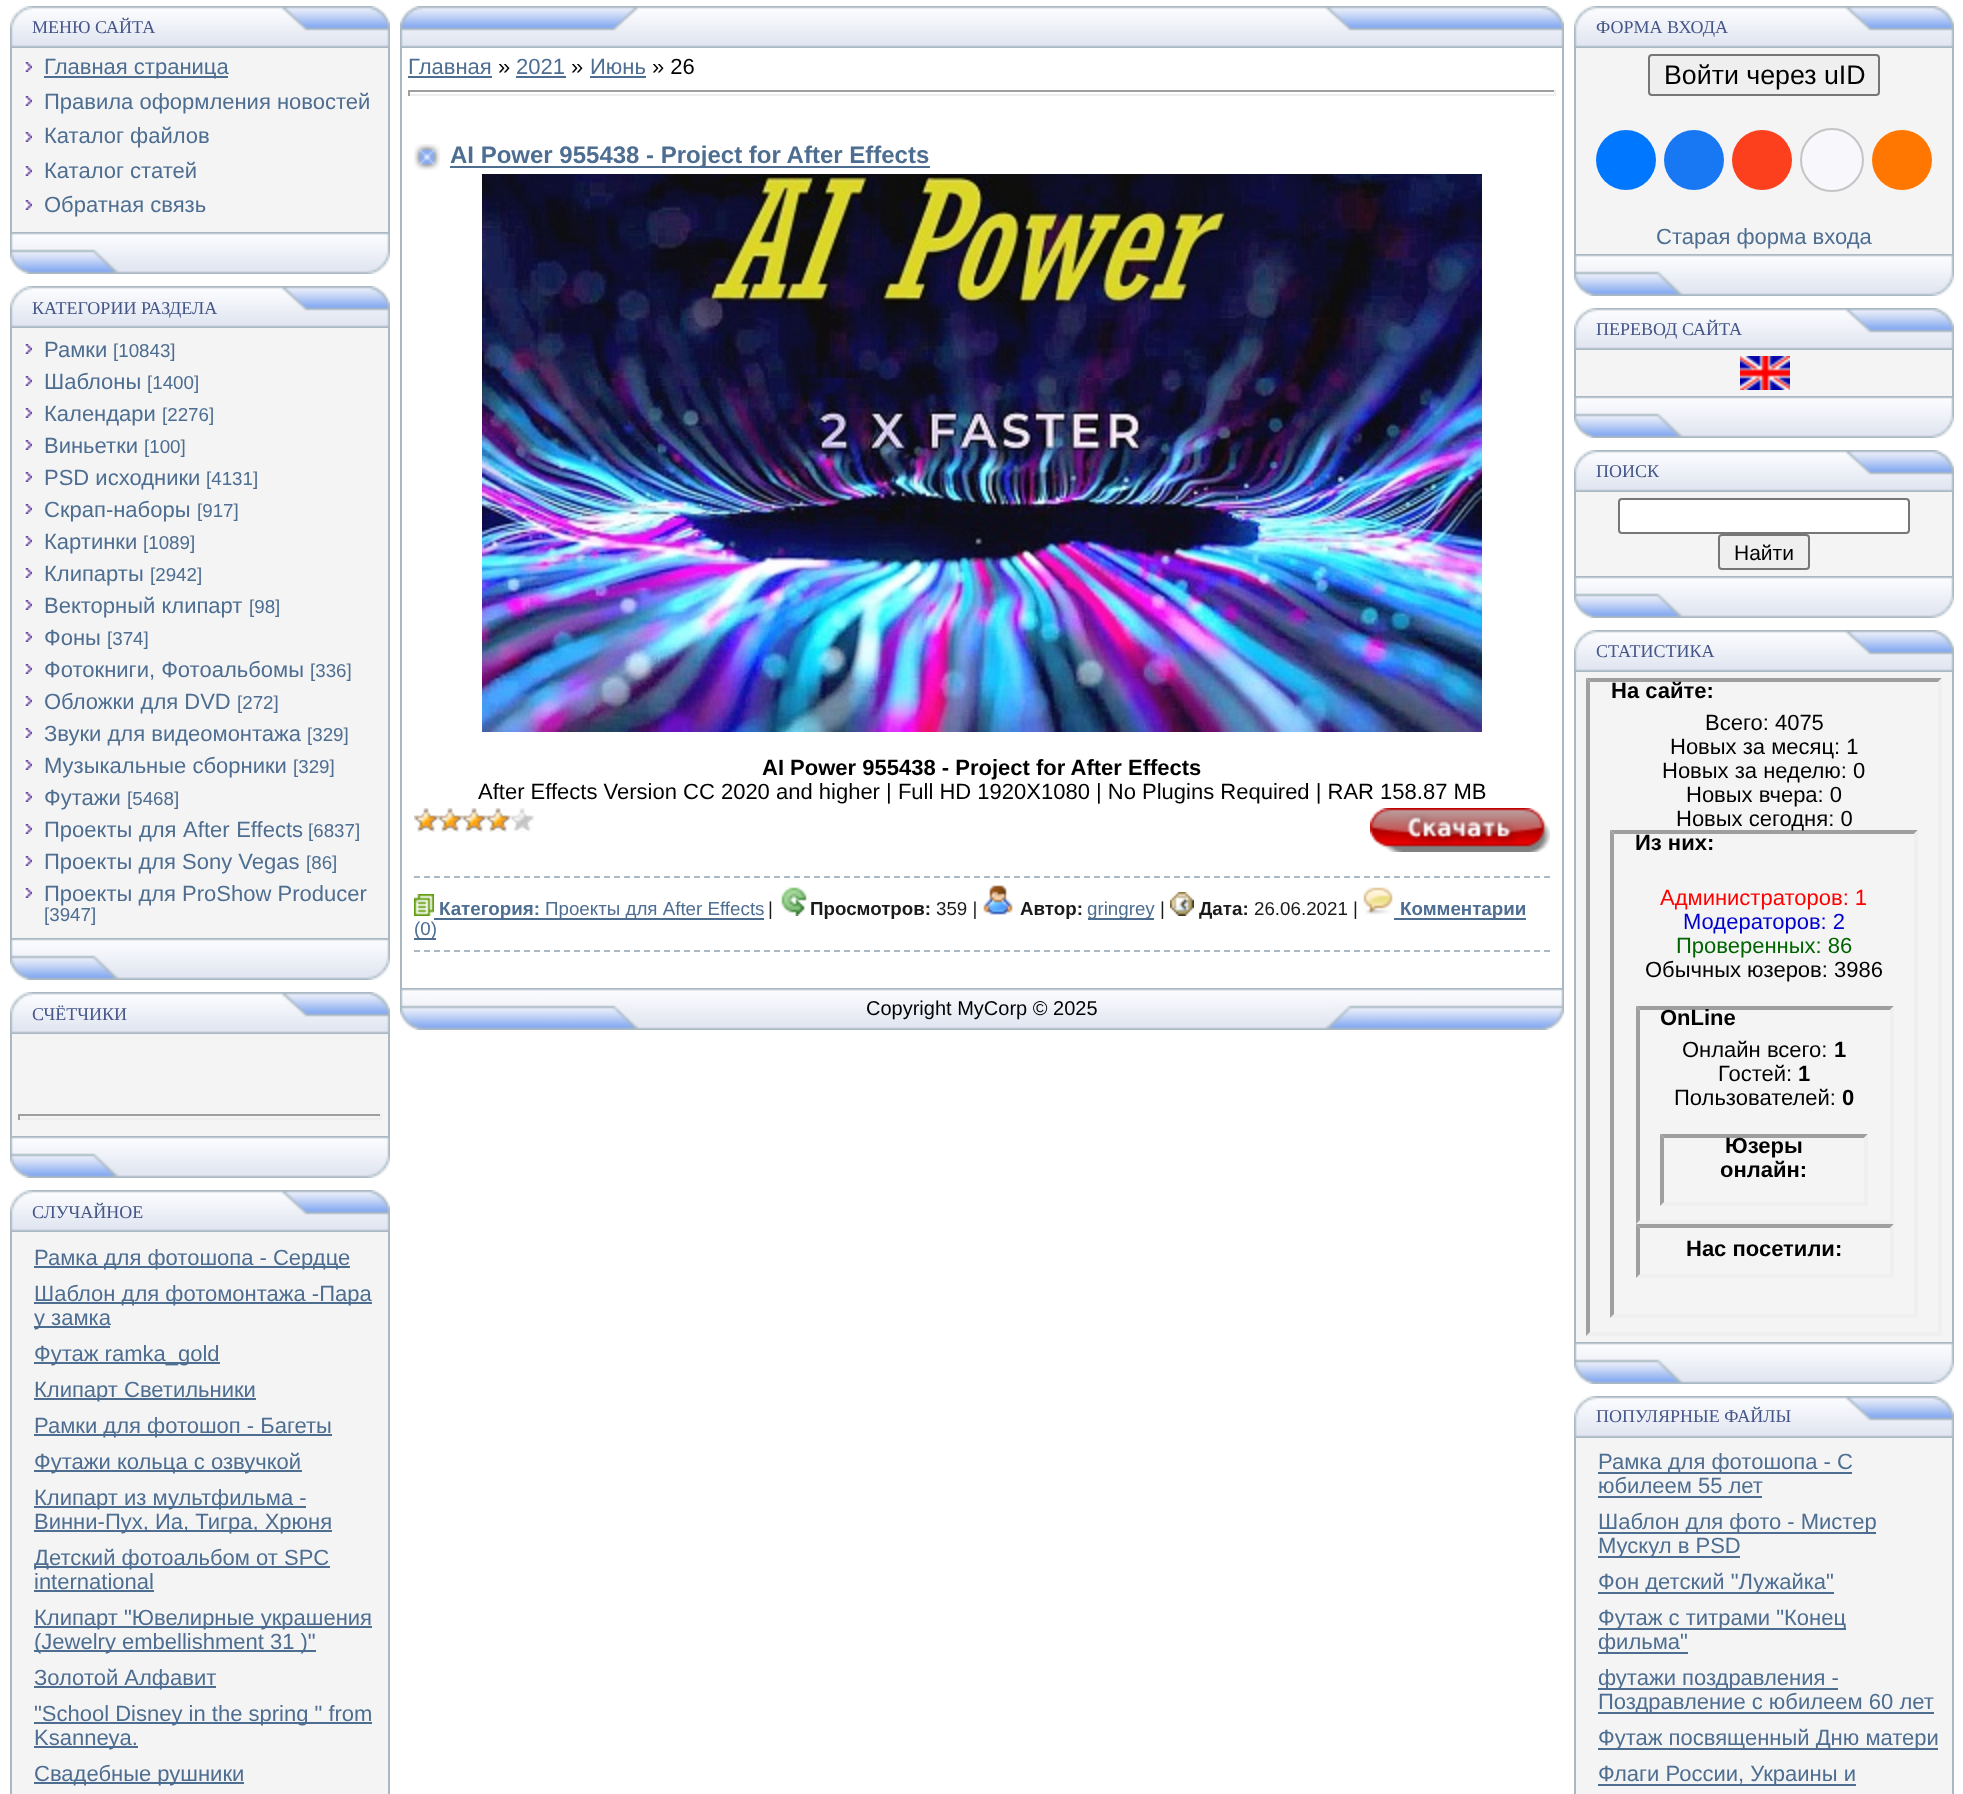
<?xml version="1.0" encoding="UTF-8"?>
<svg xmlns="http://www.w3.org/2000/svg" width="1963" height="1794">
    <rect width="100%" height="100%" fill="#FFFFFF"/>
    <image x="10" y="6" width="22" height="42" href="img_01.png"/>
    <image x="32" y="6" width="250" height="42" href="img_02.png"/>
    <text x="32" y="33" font-family="Liberation Serif" font-size="18" fill="#445588">МЕНЮ САЙТА</text>
    <image x="282" y="6" width="108" height="42" href="img_03.png"/>
    <rect x="12" y="48" width="376" height="184" fill="#F4F4F4"/>
    <rect x="388" y="48" width="2" height="184" fill="#A9B8C2"/>
    <rect x="10" y="48" width="2" height="184" fill="#A9B8C2"/>
    <image x="24" y="62" width="8" height="10" href="img_04.png"/>
    <rect x="44" y="76" width="184" height="2" fill="#4D6D91"/>
    <text x="44" y="74" font-family="Liberation Sans" font-size="22" fill="#4D6D91">Главная страница</text>
    <image x="24" y="96" width="8" height="10" href="img_04.png"/>
    <text x="44" y="109" font-family="Liberation Sans" font-size="22" fill="#4D6D91">Правила оформления новостей</text>
    <image x="24" y="132" width="8" height="10" href="img_04.png"/>
    <text x="44" y="143" font-family="Liberation Sans" font-size="22" fill="#4D6D91">Каталог файлов</text>
    <image x="24" y="166" width="8" height="10" href="img_04.png"/>
    <text x="44" y="178" font-family="Liberation Sans" font-size="22" fill="#4D6D91">Каталог статей</text>
    <image x="24" y="200" width="8" height="10" href="img_04.png"/>
    <text x="44" y="212" font-family="Liberation Sans" font-size="22" fill="#4D6D91">Обратная связь</text>
    <image x="10" y="232" width="380" height="42" href="img_05.png"/>
    <image x="10" y="286" width="22" height="42" href="img_01.png"/>
    <image x="32" y="286" width="250" height="42" href="img_02.png"/>
    <text x="32" y="314" font-family="Liberation Serif" font-size="18" fill="#445588">КАТЕГОРИИ РАЗДЕЛА</text>
    <image x="282" y="286" width="108" height="42" href="img_03.png"/>
    <rect x="12" y="328" width="376" height="610" fill="#F4F4F4"/>
    <rect x="388" y="328" width="2" height="610" fill="#A9B8C2"/>
    <rect x="10" y="328" width="2" height="610" fill="#A9B8C2"/>
    <image x="24" y="344" width="8" height="10" href="img_04.png"/>
    <text x="44" y="357" font-family="Liberation Sans" font-size="22" fill="#4D6D91">Рамки</text>
    <text x="113" y="357" font-family="Liberation Sans" font-size="18.75" fill="#4D6D91">[10843]</text>
    <image x="24" y="376" width="8" height="10" href="img_04.png"/>
    <text x="44" y="389" font-family="Liberation Sans" font-size="22" fill="#4D6D91">Шаблоны</text>
    <text x="147" y="389" font-family="Liberation Sans" font-size="18.75" fill="#4D6D91">[1400]</text>
    <image x="24" y="408" width="8" height="10" href="img_04.png"/>
    <text x="44" y="421" font-family="Liberation Sans" font-size="22" fill="#4D6D91">Календари</text>
    <text x="162" y="421" font-family="Liberation Sans" font-size="18.75" fill="#4D6D91">[2276]</text>
    <image x="24" y="440" width="8" height="10" href="img_04.png"/>
    <text x="44" y="453" font-family="Liberation Sans" font-size="22" fill="#4D6D91">Виньетки</text>
    <text x="144" y="453" font-family="Liberation Sans" font-size="18.75" fill="#4D6D91">[100]</text>
    <image x="24" y="472" width="8" height="10" href="img_04.png"/>
    <text x="44" y="485" font-family="Liberation Sans" font-size="22" fill="#4D6D91">PSD исходники</text>
    <text x="206" y="485" font-family="Liberation Sans" font-size="18.75" fill="#4D6D91">[4131]</text>
    <image x="24" y="504" width="8" height="10" href="img_04.png"/>
    <text x="44" y="517" font-family="Liberation Sans" font-size="22" fill="#4D6D91">Скрап-наборы</text>
    <text x="197" y="517" font-family="Liberation Sans" font-size="18.75" fill="#4D6D91">[917]</text>
    <image x="24" y="536" width="8" height="10" href="img_04.png"/>
    <text x="44" y="549" font-family="Liberation Sans" font-size="22" fill="#4D6D91">Картинки</text>
    <text x="143" y="549" font-family="Liberation Sans" font-size="18.75" fill="#4D6D91">[1089]</text>
    <image x="24" y="568" width="8" height="10" href="img_04.png"/>
    <text x="44" y="581" font-family="Liberation Sans" font-size="22" fill="#4D6D91">Клипарты</text>
    <text x="150" y="581" font-family="Liberation Sans" font-size="18.75" fill="#4D6D91">[2942]</text>
    <image x="24" y="600" width="8" height="10" href="img_04.png"/>
    <text x="44" y="613" font-family="Liberation Sans" font-size="22" fill="#4D6D91">Векторный клипарт</text>
    <text x="249" y="613" font-family="Liberation Sans" font-size="18.75" fill="#4D6D91">[98]</text>
    <image x="24" y="632" width="8" height="10" href="img_04.png"/>
    <text x="44" y="645" font-family="Liberation Sans" font-size="22" fill="#4D6D91">Фоны</text>
    <text x="107" y="645" font-family="Liberation Sans" font-size="18.75" fill="#4D6D91">[374]</text>
    <image x="24" y="664" width="8" height="10" href="img_04.png"/>
    <text x="44" y="677" font-family="Liberation Sans" font-size="22" fill="#4D6D91">Фотокниги, Фотоальбомы</text>
    <text x="310" y="677" font-family="Liberation Sans" font-size="18.75" fill="#4D6D91">[336]</text>
    <image x="24" y="696" width="8" height="10" href="img_04.png"/>
    <text x="44" y="709" font-family="Liberation Sans" font-size="22" fill="#4D6D91">Обложки для DVD</text>
    <text x="237" y="709" font-family="Liberation Sans" font-size="18.75" fill="#4D6D91">[272]</text>
    <image x="24" y="728" width="8" height="10" href="img_04.png"/>
    <text x="44" y="741" font-family="Liberation Sans" font-size="22" fill="#4D6D91">Звуки для видеомонтажа</text>
    <text x="307" y="741" font-family="Liberation Sans" font-size="18.75" fill="#4D6D91">[329]</text>
    <image x="24" y="760" width="8" height="10" href="img_04.png"/>
    <text x="44" y="773" font-family="Liberation Sans" font-size="22" fill="#4D6D91">Музыкальные сборники</text>
    <text x="293" y="773" font-family="Liberation Sans" font-size="18.75" fill="#4D6D91">[329]</text>
    <image x="24" y="792" width="8" height="10" href="img_04.png"/>
    <text x="44" y="805" font-family="Liberation Sans" font-size="22" fill="#4D6D91">Футажи</text>
    <text x="127" y="805" font-family="Liberation Sans" font-size="18.75" fill="#4D6D91">[5468]</text>
    <image x="24" y="824" width="8" height="10" href="img_04.png"/>
    <text x="44" y="837" word-spacing="0.5" font-family="Liberation Sans" font-size="22" fill="#4D6D91">Проекты для After Effects</text>
    <text x="308" y="837" font-family="Liberation Sans" font-size="18.75" fill="#4D6D91">[6837]</text>
    <image x="24" y="856" width="8" height="10" href="img_04.png"/>
    <text x="44" y="869" font-family="Liberation Sans" font-size="22" fill="#4D6D91">Проекты для Sony Vegas</text>
    <text x="306" y="869" font-family="Liberation Sans" font-size="18.75" fill="#4D6D91">[86]</text>
    <image x="24" y="888" width="8" height="10" href="img_04.png"/>
    <text x="44" y="901" font-family="Liberation Sans" font-size="22" fill="#4D6D91">Проекты для ProShow Producer</text>
    <text x="44" y="921" font-family="Liberation Sans" font-size="18.75" fill="#4D6D91">[3947]</text>
    <image x="10" y="938" width="380" height="42" href="img_05.png"/>
    <image x="10" y="992" width="22" height="42" href="img_01.png"/>
    <image x="32" y="992" width="250" height="42" href="img_02.png"/>
    <text x="32" y="1020" font-family="Liberation Serif" font-size="18" fill="#445588">СЧЁТЧИКИ</text>
    <image x="282" y="992" width="108" height="42" href="img_03.png"/>
    <rect x="12" y="1034" width="376" height="102" fill="#F4F4F4"/>
    <rect x="388" y="1034" width="2" height="102" fill="#A9B8C2"/>
    <rect x="10" y="1034" width="2" height="102" fill="#A9B8C2"/>
    <rect x="18" y="1114" width="364" height="2" fill="#9F9F9F"/>
    <rect x="380" y="1114" width="2" height="6" fill="#EEEEEE"/>
    <rect x="18" y="1118" width="364" height="2" fill="#EEEEEE"/>
    <rect x="18" y="1114" width="2" height="6" fill="#9F9F9F"/>
    <image x="10" y="1136" width="380" height="42" href="img_05.png"/>
    <image x="10" y="1190" width="22" height="42" href="img_01.png"/>
    <image x="32" y="1190" width="250" height="42" href="img_02.png"/>
    <text x="32" y="1218" font-family="Liberation Serif" font-size="18" fill="#445588">СЛУЧАЙНОЕ</text>
    <image x="282" y="1190" width="108" height="42" href="img_03.png"/>
    <rect x="12" y="1232" width="376" height="562" fill="#F4F4F4"/>
    <rect x="388" y="1232" width="2" height="562" fill="#A9B8C2"/>
    <rect x="10" y="1232" width="2" height="562" fill="#A9B8C2"/>
    <rect x="34" y="1266" width="316" height="2" fill="#4D6D91"/>
    <text x="34" y="1265" font-family="Liberation Sans" font-size="22" fill="#4D6D91">Рамка для фотошопа - Сердце</text>
    <rect x="34" y="1302" width="338" height="2" fill="#4D6D91"/>
    <text x="34" y="1301" font-family="Liberation Sans" font-size="22" fill="#4D6D91">Шаблон для фотомонтажа -Пара</text>
    <rect x="34" y="1326" width="76" height="2" fill="#4D6D91"/>
    <text x="34" y="1325" font-family="Liberation Sans" font-size="22" fill="#4D6D91">у замка</text>
    <rect x="34" y="1362" width="186" height="2" fill="#4D6D91"/>
    <text x="34" y="1361" font-family="Liberation Sans" font-size="22" fill="#4D6D91">Футаж ramka_gold</text>
    <rect x="34" y="1398" width="222" height="2" fill="#4D6D91"/>
    <text x="34" y="1397" font-family="Liberation Sans" font-size="22" fill="#4D6D91">Клипарт Светильники</text>
    <rect x="34" y="1434" width="298" height="2" fill="#4D6D91"/>
    <text x="34" y="1433" font-family="Liberation Sans" font-size="22" fill="#4D6D91">Рамки для фотошоп - Багеты</text>
    <rect x="34" y="1470" width="268" height="2" fill="#4D6D91"/>
    <text x="34" y="1469" font-family="Liberation Sans" font-size="22" fill="#4D6D91">Футажи кольца с озвучкой</text>
    <rect x="34" y="1506" width="272" height="2" fill="#4D6D91"/>
    <text x="34" y="1505" font-family="Liberation Sans" font-size="22" fill="#4D6D91">Клипарт из мультфильма -</text>
    <rect x="34" y="1530" width="298" height="2" fill="#4D6D91"/>
    <text x="34" y="1529" font-family="Liberation Sans" font-size="22" fill="#4D6D91">Винни-Пух, Иа, Тигра, Хрюня</text>
    <rect x="34" y="1566" width="296" height="2" fill="#4D6D91"/>
    <text font-family="Liberation Sans" font-size="22" fill="#4D6D91">
        <tspan x="34" y="1565">Детский фотоальбом от SPC</tspan>
        <tspan x="34" y="1589">international</tspan>
    </text>
    <rect x="34" y="1590" width="120" height="2" fill="#4D6D91"/>
    <rect x="34" y="1626" width="338" height="2" fill="#4D6D91"/>
    <text x="34" y="1625" font-family="Liberation Sans" font-size="22" fill="#4D6D91">Клипарт "Ювелирные украшения</text>
    <rect x="34" y="1650" width="282" height="2" fill="#4D6D91"/>
    <text x="34" y="1649" font-family="Liberation Sans" font-size="22" fill="#4D6D91">(Jewelry embellishment 31 )"</text>
    <rect x="34" y="1686" width="182" height="2" fill="#4D6D91"/>
    <text x="34" y="1685" font-family="Liberation Sans" font-size="22" fill="#4D6D91">Золотой Алфавит</text>
    <rect x="34" y="1722" width="338" height="2" fill="#4D6D91"/>
    <text x="34" y="1721" font-family="Liberation Sans" font-size="22" fill="#4D6D91">"School Disney in the spring " from</text>
    <rect x="34" y="1746" width="104" height="2" fill="#4D6D91"/>
    <text x="34" y="1745" font-family="Liberation Sans" font-size="22" fill="#4D6D91">Ksanneya.</text>
    <rect x="34" y="1782" width="210" height="2" fill="#4D6D91"/>
    <text x="34" y="1781" font-family="Liberation Sans" font-size="22" fill="#4D6D91">Cвадебные рушники</text>
    <image x="400" y="6" width="238" height="42" href="img_06.png"/>
    <image x="638" y="6" width="688" height="42" href="img_07.png"/>
    <image x="1326" y="6" width="238" height="42" href="img_08.png"/>
    <rect x="1562" y="48" width="2" height="940" fill="#A9B8C2"/>
    <rect x="400" y="48" width="2" height="940" fill="#A9B8C2"/>
    <text x="408" y="74" font-family="Liberation Sans" font-size="22" fill="#4D6D91">Главная</text>
    <rect x="408" y="76" width="84" height="2" fill="#4D6D91"/>
    <text x="498" y="74" font-family="Liberation Sans" font-size="22" fill="#000000">»</text>
    <text x="516" y="74" font-family="Liberation Sans" font-size="22" fill="#4D6D91">2021</text>
    <rect x="516" y="76" width="50" height="2" fill="#4D6D91"/>
    <text x="571" y="74" font-family="Liberation Sans" font-size="22" fill="#000000">»</text>
    <text x="590" y="74" font-family="Liberation Sans" font-size="22" fill="#4D6D91">Июнь</text>
    <rect x="590" y="76" width="56" height="2" fill="#4D6D91"/>
    <text x="652" y="74" font-family="Liberation Sans" font-size="22" fill="#000000">» 26</text>
    <rect x="408" y="90" width="1148" height="2" fill="#9F9F9F"/>
    <rect x="1554" y="90" width="2" height="6" fill="#EEEEEE"/>
    <rect x="408" y="94" width="1148" height="2" fill="#EEEEEE"/>
    <rect x="408" y="90" width="2" height="6" fill="#9F9F9F"/>
    <image x="414" y="144" width="26" height="26" href="img_09.png"/>
    <rect x="450" y="166" width="480" height="2" fill="#4D6D91"/>
    <text x="450" y="163" font-family="Liberation Sans" font-size="24" font-weight="700" fill="#4D6D91">AI Power 955438 - Project for After Effects</text>
    <image x="482" y="174" width="1000" height="558" href="img_10.png"/>
    <text x="762" y="775" font-family="Liberation Sans" font-size="22" font-weight="700" fill="#000000">AI Power 955438 - Project for After Effects</text>
    <text x="478" y="799" font-family="Liberation Sans" font-size="22" fill="#000000">After Effects Version CC 2020 and higher | Full HD 1920X1080 | No Plugins Required | RAR 158.87 MB</text>
    <image x="414" y="808" width="120" height="24" href="img_11.png"/>
    <image x="414" y="808" width="96" height="24" href="img_12.png"/>
    <image x="1370" y="808" width="180" height="44" href="img_13.png"/>
    <path d="M 414 877 H 1550" fill="none" stroke="#A9B8C2" stroke-width="2" stroke-dasharray="6 4"/>
    <path d="M 414 951 H 1550" fill="none" stroke="#A9B8C2" stroke-width="2" stroke-dasharray="6 4"/>
    <image x="414" y="894" width="20" height="22" href="img_14.png"/>
    <rect x="434" y="918" width="330" height="2" fill="#4D6D91"/>
    <text x="439" y="915" font-family="Liberation Sans" font-size="18.75" font-weight="700" fill="#4D6D91">Категория:</text>
    <text x="545" y="915" font-family="Liberation Sans" font-size="18.75" fill="#4D6D91">Проекты для After Effects</text>
    <text x="768" y="915" font-family="Liberation Sans" font-size="18.75" fill="#1A1A1A">|</text>
    <image x="781" y="887" width="26" height="29" href="img_15.png"/>
    <text x="810" y="915" font-family="Liberation Sans" font-size="18.75" font-weight="700" fill="#1A1A1A">Просмотров:</text>
    <text x="936" y="915" font-family="Liberation Sans" font-size="18.75" fill="#1A1A1A">359 |</text>
    <image x="983" y="885" width="30" height="30" href="img_16.png"/>
    <text x="1020" y="915" font-family="Liberation Sans" font-size="18.75" font-weight="700" fill="#1A1A1A">Автор:</text>
    <rect x="1088" y="918" width="66" height="2" fill="#4D6D91"/>
    <text x="1087" y="915" font-family="Liberation Sans" font-size="18.75" fill="#4D6D91">gringrey</text>
    <text x="1160" y="915" font-family="Liberation Sans" font-size="18.75" fill="#1A1A1A">|</text>
    <image x="1170" y="892" width="24" height="24" href="img_17.png"/>
    <text x="1199" y="915" font-family="Liberation Sans" font-size="18.75" font-weight="700" fill="#1A1A1A">Дата:</text>
    <text x="1254" y="915" font-family="Liberation Sans" font-size="18.75" fill="#1A1A1A">26.06.2021 |</text>
    <image x="1363" y="887" width="30" height="28" href="img_18.png"/>
    <rect x="1394" y="918" width="132" height="2" fill="#4D6D91"/>
    <text x="1400" y="915" font-family="Liberation Sans" font-size="18.75" font-weight="700" fill="#4D6D91">Комментарии</text>
    <rect x="414" y="938" width="22" height="2" fill="#4D6D91"/>
    <text x="414" y="935" font-family="Liberation Sans" font-size="18.75" fill="#4D6D91">(0)</text>
    <image x="400" y="988" width="238" height="42" href="img_19.png"/>
    <image x="638" y="988" width="688" height="42" href="img_07.png"/>
    <text x="866" y="1015" font-family="Liberation Sans" font-size="20" fill="#000000">Copyright MyCorp © 2025</text>
    <image x="1326" y="988" width="238" height="42" href="img_20.png"/>
    <image x="1574" y="6" width="22" height="42" href="img_01.png"/>
    <image x="1596" y="6" width="250" height="42" href="img_02.png"/>
    <text x="1596" y="33" font-family="Liberation Serif" font-size="18" fill="#445588">ФОРМА ВХОДА</text>
    <image x="1846" y="6" width="108" height="42" href="img_03.png"/>
    <rect x="1576" y="48" width="376" height="206" fill="#F4F4F4"/>
    <rect x="1952" y="48" width="2" height="206" fill="#A9B8C2"/>
    <rect x="1574" y="48" width="2" height="206" fill="#A9B8C2"/>
    <rect x="1649" y="55" width="230" height="40" rx="3" fill="#EFEFEF" stroke="#767676" stroke-width="2"/>
    <text x="1664" y="84" font-family="Liberation Sans" font-size="26.75" fill="#000000">Войти через uID</text>
    <circle cx="1626" cy="160" r="30" fill="#0077FF"/>
    <circle cx="1694" cy="160" r="30" fill="#1877F2"/>
    <circle cx="1762" cy="160" r="30" fill="#FC3F1D"/>
    <circle cx="1832" cy="160" r="31" fill="#F8F8FC" stroke="#C4C4C4" stroke-width="2"/>
    <circle cx="1902" cy="160" r="30" fill="#FF7700"/>
    <text x="1656" y="244" font-family="Liberation Sans" font-size="22" fill="#4D6D91">Старая форма входа</text>
    <image x="1574" y="254" width="380" height="42" href="img_05.png"/>
    <image x="1574" y="308" width="22" height="42" href="img_01.png"/>
    <image x="1596" y="308" width="250" height="42" href="img_02.png"/>
    <text x="1596" y="335" font-family="Liberation Serif" font-size="18" fill="#445588">ПЕРЕВОД САЙТА</text>
    <image x="1846" y="308" width="108" height="42" href="img_03.png"/>
    <rect x="1576" y="350" width="376" height="46" fill="#F4F4F4"/>
    <rect x="1952" y="350" width="2" height="46" fill="#A9B8C2"/>
    <rect x="1574" y="350" width="2" height="46" fill="#A9B8C2"/>
    <image x="1740" y="356" width="50" height="34" href="img_21.png"/>
    <image x="1574" y="396" width="380" height="42" href="img_05.png"/>
    <image x="1574" y="450" width="22" height="42" href="img_01.png"/>
    <image x="1596" y="450" width="250" height="42" href="img_02.png"/>
    <text x="1596" y="477" font-family="Liberation Serif" font-size="18" fill="#445588">ПОИСК</text>
    <image x="1846" y="450" width="108" height="42" href="img_03.png"/>
    <rect x="1576" y="492" width="376" height="84" fill="#F4F4F4"/>
    <rect x="1952" y="492" width="2" height="84" fill="#A9B8C2"/>
    <rect x="1574" y="492" width="2" height="84" fill="#A9B8C2"/>
    <rect x="1619" y="499" width="290" height="34" rx="3" fill="#FFFFFF" stroke="#767676" stroke-width="2"/>
    <rect x="1719" y="535" width="90" height="34" rx="3" fill="#EFEFEF" stroke="#767676" stroke-width="2"/>
    <text x="1734" y="560" font-family="Liberation Sans" font-size="21" fill="#000000">Найти</text>
    <image x="1574" y="576" width="380" height="42" href="img_05.png"/>
    <image x="1574" y="630" width="22" height="42" href="img_01.png"/>
    <image x="1596" y="630" width="250" height="42" href="img_02.png"/>
    <text x="1596" y="657" font-family="Liberation Serif" font-size="18" fill="#445588">СТАТИСТИКА</text>
    <image x="1846" y="630" width="108" height="42" href="img_03.png"/>
    <rect x="1576" y="672" width="376" height="670" fill="#F4F4F4"/>
    <rect x="1952" y="672" width="2" height="670" fill="#A9B8C2"/>
    <rect x="1574" y="672" width="2" height="670" fill="#A9B8C2"/>
    <path d="M 1586 678 H 1942 L 1938 682 H 1590 Z" fill="#9F9F9F"/>
    <path d="M 1942 678 V 1336 L 1938 1332 V 682 Z" fill="#EFEFEF"/>
    <path d="M 1942 1336 H 1586 L 1590 1332 H 1938 Z" fill="#EFEFEF"/>
    <path d="M 1586 1336 V 678 L 1590 682 V 1332 Z" fill="#9F9F9F"/>
    <text x="1611" y="698" font-family="Liberation Sans" font-size="22" font-weight="700" fill="#000000">На сайте:</text>
    <text x="1705" y="730" font-family="Liberation Sans" font-size="22" fill="#000000">Всего: 4075</text>
    <text x="1670" y="754" font-family="Liberation Sans" font-size="22" fill="#000000">Новых за месяц: 1</text>
    <text x="1662" y="778" font-family="Liberation Sans" font-size="22" fill="#000000">Новых за неделю: 0</text>
    <text x="1686" y="802" font-family="Liberation Sans" font-size="22" fill="#000000">Новых вчера: 0</text>
    <path d="M 1610 830 H 1918 L 1914 834 H 1614 Z" fill="#9F9F9F"/>
    <text x="1676" y="826" font-family="Liberation Sans" font-size="22" fill="#000000">Новых сегодня: 0</text>
    <path d="M 1918 830 V 1318 L 1914 1314 V 834 Z" fill="#EFEFEF"/>
    <path d="M 1918 1318 H 1610 L 1614 1314 H 1914 Z" fill="#EFEFEF"/>
    <path d="M 1610 1318 V 830 L 1614 834 V 1314 Z" fill="#9F9F9F"/>
    <text x="1635" y="850" font-family="Liberation Sans" font-size="22" font-weight="700" fill="#000000">Из них:</text>
    <text x="1660" y="905" font-family="Liberation Sans" font-size="22" fill="#FF0000">Администраторов: 1</text>
    <text x="1683" y="929" font-family="Liberation Sans" font-size="22" fill="#0000CD">Модераторов: 2</text>
    <text x="1676" y="953" font-family="Liberation Sans" font-size="22" fill="#006400">Проверенных: 86</text>
    <text x="1645" y="977" font-family="Liberation Sans" font-size="22" fill="#000000">Обычных юзеров: 3986</text>
    <path d="M 1636 1006 H 1894 L 1890 1010 H 1640 Z" fill="#9F9F9F"/>
    <path d="M 1894 1006 V 1224 L 1890 1220 V 1010 Z" fill="#EFEFEF"/>
    <path d="M 1894 1224 H 1636 L 1640 1220 H 1890 Z" fill="#EFEFEF"/>
    <path d="M 1636 1224 V 1006 L 1640 1010 V 1220 Z" fill="#9F9F9F"/>
    <text x="1660" y="1025" font-family="Liberation Sans" font-size="22" font-weight="700" fill="#000000">OnLine</text>
    <text x="1682" y="1057" font-family="Liberation Sans" font-size="22" fill="#000000">Онлайн всего:</text>
    <text x="1834" y="1057" font-family="Liberation Sans" font-size="22" font-weight="700" fill="#000000">1</text>
    <text x="1718" y="1081" font-family="Liberation Sans" font-size="22" fill="#000000">Гостей:</text>
    <text x="1798" y="1081" font-family="Liberation Sans" font-size="22" font-weight="700" fill="#000000">1</text>
    <text x="1674" y="1105" font-family="Liberation Sans" font-size="22" fill="#000000">Пользователей:</text>
    <text x="1842" y="1105" font-family="Liberation Sans" font-size="22" font-weight="700" fill="#000000">0</text>
    <path d="M 1660 1134 H 1868 L 1864 1138 H 1664 Z" fill="#9F9F9F"/>
    <path d="M 1868 1134 V 1206 L 1864 1202 V 1138 Z" fill="#EFEFEF"/>
    <path d="M 1868 1206 H 1660 L 1664 1202 H 1864 Z" fill="#EFEFEF"/>
    <path d="M 1660 1206 V 1134 L 1664 1138 V 1202 Z" fill="#9F9F9F"/>
    <text x="1725" y="1153" font-family="Liberation Sans" font-size="22" font-weight="700" fill="#000000">Юзеры</text>
    <text x="1720" y="1177" font-family="Liberation Sans" font-size="22" font-weight="700" fill="#000000">онлайн:</text>
    <path d="M 1636 1224 H 1894 L 1890 1228 H 1640 Z" fill="#9F9F9F"/>
    <path d="M 1894 1224 V 1278 L 1890 1274 V 1228 Z" fill="#EFEFEF"/>
    <path d="M 1894 1278 H 1636 L 1640 1274 H 1890 Z" fill="#EFEFEF"/>
    <path d="M 1636 1278 V 1224 L 1640 1228 V 1274 Z" fill="#9F9F9F"/>
    <text x="1686" y="1256" font-family="Liberation Sans" font-size="22" font-weight="700" fill="#000000">Нас посетили:</text>
    <image x="1574" y="1342" width="380" height="42" href="img_05.png"/>
    <image x="1574" y="1396" width="22" height="42" href="img_01.png"/>
    <image x="1596" y="1396" width="250" height="42" href="img_02.png"/>
    <text x="1596" y="1422" font-family="Liberation Serif" font-size="18" fill="#445588">ПОПУЛЯРНЫЕ ФАЙЛЫ</text>
    <image x="1846" y="1396" width="108" height="42" href="img_03.png"/>
    <rect x="1576" y="1438" width="376" height="356" fill="#F4F4F4"/>
    <rect x="1952" y="1438" width="2" height="356" fill="#A9B8C2"/>
    <rect x="1574" y="1438" width="2" height="356" fill="#A9B8C2"/>
    <rect x="1598" y="1472" width="254" height="2" fill="#4D6D91"/>
    <text font-family="Liberation Sans" font-size="22" fill="#4D6D91">
        <tspan x="1598" y="1469">Рамка для фотошопа - С</tspan>
        <tspan x="1598" y="1493">юбилеем 55 лет</tspan>
    </text>
    <rect x="1598" y="1496" width="164" height="2" fill="#4D6D91"/>
    <rect x="1598" y="1532" width="278" height="2" fill="#4D6D91"/>
    <text x="1598" y="1529" font-family="Liberation Sans" font-size="22" fill="#4D6D91">Шаблон для фото - Мистер</text>
    <rect x="1598" y="1556" width="142" height="2" fill="#4D6D91"/>
    <text x="1598" y="1553" font-family="Liberation Sans" font-size="22" fill="#4D6D91">Мускул в PSD</text>
    <rect x="1598" y="1592" width="236" height="2" fill="#4D6D91"/>
    <text x="1598" y="1589" font-family="Liberation Sans" font-size="22" fill="#4D6D91">Фон детский "Лужайка"</text>
    <rect x="1598" y="1628" width="248" height="2" fill="#4D6D91"/>
    <text x="1598" y="1625" font-family="Liberation Sans" font-size="22" fill="#4D6D91">Футаж с титрами "Конец</text>
    <rect x="1598" y="1652" width="90" height="2" fill="#4D6D91"/>
    <text x="1598" y="1649" font-family="Liberation Sans" font-size="22" fill="#4D6D91">фильма"</text>
    <rect x="1598" y="1688" width="240" height="2" fill="#4D6D91"/>
    <text x="1598" y="1685" font-family="Liberation Sans" font-size="22" fill="#4D6D91">футажи поздравления -</text>
    <rect x="1598" y="1712" width="336" height="2" fill="#4D6D91"/>
    <text x="1598" y="1709" font-family="Liberation Sans" font-size="22" fill="#4D6D91">Поздравление с юбилеем 60 лет</text>
    <rect x="1598" y="1748" width="340" height="2" fill="#4D6D91"/>
    <text x="1598" y="1745" font-family="Liberation Sans" font-size="22" fill="#4D6D91">Футаж посвященный Дню матери</text>
    <rect x="1598" y="1784" width="258" height="2" fill="#4D6D91"/>
    <text x="1598" y="1781" font-family="Liberation Sans" font-size="22" fill="#4D6D91">Флаги России, Украины и</text>
</svg>
